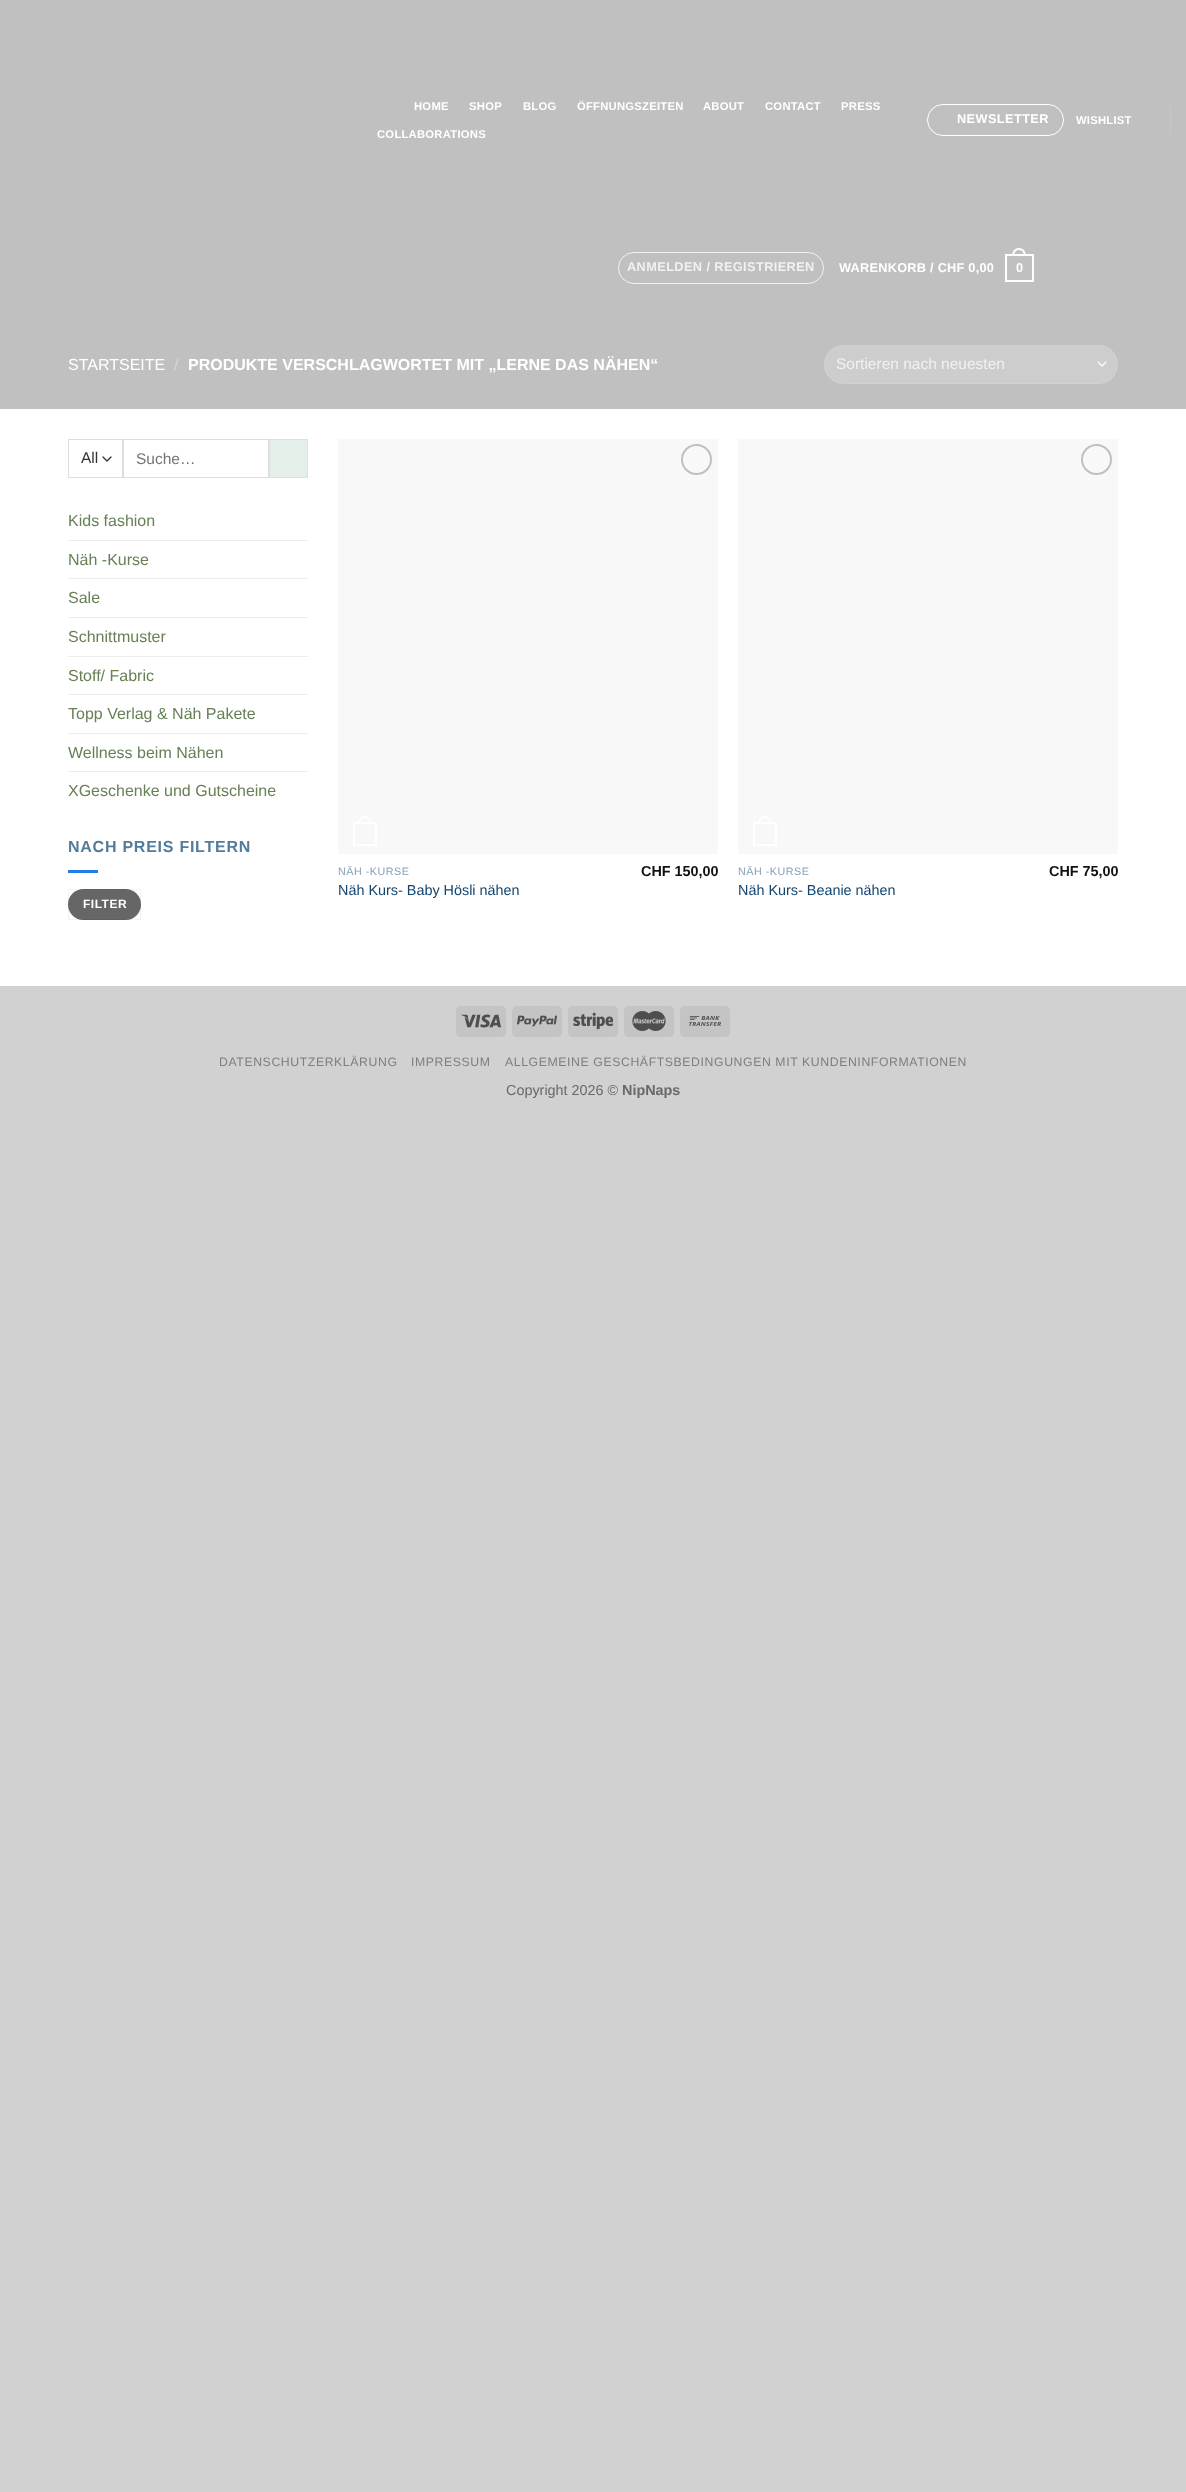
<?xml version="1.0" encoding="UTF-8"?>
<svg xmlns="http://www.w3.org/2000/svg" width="1186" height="2492">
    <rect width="100%" height="100%" fill="#D1D1D1"/>
    <rect x="0" y="409" width="1186" height="577" fill="#FFFFFF"/>
    <rect x="0" y="0" width="1186" height="409" fill="#C0C0C0"/>
    <text x="414" y="110" font-family="Liberation Sans" font-size="11.25" font-weight="700" letter-spacing="0.25" fill="#FFFFFF">HOME</text>
    <text x="469" y="110" font-family="Liberation Sans" font-size="11.25" font-weight="700" letter-spacing="0.25" fill="#FFFFFF">SHOP</text>
    <text x="523" y="110" font-family="Liberation Sans" font-size="11.25" font-weight="700" letter-spacing="0.25" fill="#FFFFFF">BLOG</text>
    <text x="577" y="110" font-family="Liberation Sans" font-size="11.25" font-weight="700" letter-spacing="0.25" fill="#FFFFFF">ÖFFNUNGSZEITEN</text>
    <text x="703" y="110" font-family="Liberation Sans" font-size="11.25" font-weight="700" letter-spacing="0.25" fill="#FFFFFF">ABOUT</text>
    <text x="765" y="110" font-family="Liberation Sans" font-size="11.25" font-weight="700" letter-spacing="0.25" fill="#FFFFFF">CONTACT</text>
    <text x="841" y="110" font-family="Liberation Sans" font-size="11.25" font-weight="700" letter-spacing="0.25" fill="#FFFFFF">PRESS</text>
    <text x="377" y="138" font-family="Liberation Sans" font-size="11.25" font-weight="700" letter-spacing="0.25" fill="#FFFFFF">COLLABORATIONS</text>
    <rect x="927.5" y="104.5" width="136" height="31" rx="15.5" fill="none" stroke="#FFFFFF"/>
    <text x="957" y="123" font-family="Liberation Sans" font-size="12.75" font-weight="700" letter-spacing="0.4" fill="#FFFFFF">NEWSLETTER</text>
    <text x="1076" y="124" font-family="Liberation Sans" font-size="11.25" font-weight="700" letter-spacing="0.25" fill="#FFFFFF">WISHLIST</text>
    <rect x="1170" y="105" width="1" height="30" fill="#C6C6C6"/>
    <rect x="618.5" y="252.5" width="205" height="31" rx="15.5" fill="none" stroke="#F2F2F2"/>
    <text x="627" y="271" font-family="Liberation Sans" font-size="12.75" font-weight="700" letter-spacing="0.4" fill="#F1F1F1">ANMELDEN / REGISTRIEREN</text>
    <text x="839" y="272" font-family="Liberation Sans" font-size="12.75" font-weight="700" letter-spacing="0.25" fill="#FFFFFF">WARENKORB / CHF 0,00</text>
    <rect x="1006" y="255" width="27" height="26" fill="none" stroke="#FFFFFF" stroke-width="2"/>
    <path d="M 1019 248 C 1023.5 248 1026 252 1026 256 H 1012 C 1012 252 1014.5 248 1019 248 Z M 1019 250 C 1022.5 250 1024 253 1024 256 H 1014 C 1014 253 1015.5 250 1019 250 Z" fill="#FFFFFF" fill-rule="evenodd"/>
    <text x="1016" y="272" font-family="Liberation Sans" font-size="12.75" font-weight="700" letter-spacing="0.25" fill="#FFFFFF">0</text>
    <text x="68" y="370" font-family="Liberation Sans" font-size="16" fill="#FFFFFF">STARTSEITE</text>
    <text x="174" y="370" font-family="Liberation Sans" font-size="16" fill="#D6D6D6">/</text>
    <text x="188" y="370" font-family="Liberation Sans" font-size="16" font-weight="700" fill="#FFFFFF">PRODUKTE VERSCHLAGWORTET MIT „LERNE DAS NÄHEN“</text>
    <rect x="824" y="345" width="294" height="39" rx="19.5" fill="#CDCDCD"/>
    <path d="M 1098 362 L 1102 366 L 1106 362" fill="none" stroke="#FFFFFF" stroke-width="1.3" stroke-linecap="round" stroke-linejoin="round"/>
    <rect x="824.5" y="345.5" width="293" height="38" rx="19" fill="none" stroke="#FFFFFF" stroke-opacity="0.09"/>
    <text x="836" y="369" font-family="Liberation Sans" font-size="15.5" fill="#F1F1F1">Sortieren nach neuesten</text>
    <path d="M 103 457 L 107 461 L 111 457" fill="none" stroke="#333333" stroke-width="1.3" stroke-linecap="round" stroke-linejoin="round"/>
    <rect x="68.5" y="439.5" width="54" height="38" fill="none" stroke="#DDDDDD"/>
    <text x="81" y="463" font-family="Liberation Sans" font-size="15.5" fill="#333333">All</text>
    <rect x="123.5" y="439.5" width="145" height="38" fill="none" stroke="#DDDDDD"/>
    <text x="136" y="464" font-family="Liberation Sans" font-size="15.5" fill="#757575">Suche…</text>
    <rect x="269.5" y="439.5" width="38" height="38" fill="#E5EFEA" stroke="#DAE3DE"/>
    <text x="68" y="526" font-family="Liberation Sans" font-size="16" fill="#678055">Kids fashion</text>
    <rect x="68" y="540" width="240" height="1" fill="#ECECEC"/>
    <text x="68" y="565" font-family="Liberation Sans" font-size="16" fill="#678055">Näh -Kurse</text>
    <rect x="68" y="578" width="240" height="1" fill="#ECECEC"/>
    <text x="68" y="603" font-family="Liberation Sans" font-size="16" fill="#678055">Sale</text>
    <rect x="68" y="617" width="240" height="1" fill="#ECECEC"/>
    <text x="68" y="642" font-family="Liberation Sans" font-size="16" fill="#678055">Schnittmuster</text>
    <rect x="68" y="656" width="240" height="1" fill="#ECECEC"/>
    <text x="68" y="681" font-family="Liberation Sans" font-size="16" fill="#678055">Stoff/ Fabric</text>
    <rect x="68" y="694" width="240" height="1" fill="#ECECEC"/>
    <text x="68" y="719" font-family="Liberation Sans" font-size="16" fill="#678055">Topp Verlag &amp; Näh Pakete</text>
    <rect x="68" y="733" width="240" height="1" fill="#ECECEC"/>
    <text x="68" y="758" font-family="Liberation Sans" font-size="16" fill="#678055">Wellness beim Nähen</text>
    <rect x="68" y="771" width="240" height="1" fill="#ECECEC"/>
    <text x="68" y="796" font-family="Liberation Sans" font-size="16" fill="#678055">XGeschenke und Gutscheine</text>
    <text x="68" y="852" font-family="Liberation Sans" font-size="16" font-weight="700" letter-spacing="0.75" fill="#537C9B">NACH PREIS FILTERN</text>
    <rect x="68" y="870" width="30" height="3" fill="#247DE2"/>
    <rect x="68" y="889" width="73" height="31" rx="15.5" fill="#666666"/>
    <rect x="68.5" y="889.5" width="72" height="30" fill="none" stroke="#000000" stroke-opacity="0.05"/>
    <text x="83" y="908" font-family="Liberation Sans" font-size="12" font-weight="700" letter-spacing="0.5" fill="#FFFFFF">FILTER</text>
    <rect x="338" y="439" width="380" height="415" fill="#F8F8F8"/>
    <circle cx="696.5" cy="459.5" r="14.5" fill="none" stroke="#C0C0C0" stroke-width="2"/>
    <rect x="354" y="823" width="22" height="22" fill="none" stroke="#FFFFFF" stroke-width="2"/>
    <path d="M 365 816 C 369.5 816 372 820 372 824 H 358 C 358 820 360.5 816 365 816 Z M 365 818 C 368.5 818 370 821 370 824 H 360 C 360 821 361.5 818 365 818 Z" fill="#FFFFFF" fill-rule="evenodd"/>
    <text x="338" y="875" font-family="Liberation Sans" font-size="10.75" letter-spacing="0.5" fill="#87A3B9">NÄH -KURSE</text>
    <text x="338" y="895" font-family="Liberation Sans" font-size="14.4" fill="#134571">Näh Kurs- Baby Hösli nähen</text>
    <text x="641" y="876" font-family="Liberation Sans" font-size="14.4" font-weight="700" fill="#111111">CHF 150,00</text>
    <rect x="738" y="439" width="380" height="415" fill="#F8F8F8"/>
    <circle cx="1096.5" cy="459.5" r="14.5" fill="none" stroke="#C0C0C0" stroke-width="2"/>
    <rect x="754" y="823" width="22" height="22" fill="none" stroke="#FFFFFF" stroke-width="2"/>
    <path d="M 765 816 C 769.5 816 772 820 772 824 H 758 C 758 820 760.5 816 765 816 Z M 765 818 C 768.5 818 770 821 770 824 H 760 C 760 821 761.5 818 765 818 Z" fill="#FFFFFF" fill-rule="evenodd"/>
    <text x="738" y="875" font-family="Liberation Sans" font-size="10.75" letter-spacing="0.5" fill="#87A3B9">NÄH -KURSE</text>
    <text x="738" y="895" font-family="Liberation Sans" font-size="14.4" fill="#134571">Näh Kurs- Beanie nähen</text>
    <text x="1049" y="876" font-family="Liberation Sans" font-size="14.4" font-weight="700" fill="#111111">CHF 75,00</text>
    <rect x="456" y="1006" width="50" height="31" rx="5" fill="#C4C4C4"/>
    <image x="461" y="1014" width="40" height="14" href="img_01.png"/>
    <rect x="512" y="1006" width="50" height="31" rx="5" fill="#C4C4C4"/>
    <image x="517" y="1015" width="40" height="12" href="img_02.png"/>
    <rect x="568" y="1006" width="50" height="31" rx="5" fill="#C4C4C4"/>
    <image x="573" y="1012" width="40" height="18" href="img_03.png"/>
    <rect x="624" y="1006" width="50" height="31" rx="5" fill="#C4C4C4"/>
    <image x="632" y="1011" width="34" height="20" href="img_04.png"/>
    <rect x="680" y="1006" width="50" height="31" rx="5" fill="#C4C4C4"/>
    <image x="689" y="1016" width="32" height="10" href="img_05.png"/>
    <text x="219" y="1066" font-family="Liberation Sans" font-size="12.25" letter-spacing="0.6" fill="#7E7E7E">DATENSCHUTZERKLÄRUNG</text>
    <text x="411" y="1066" font-family="Liberation Sans" font-size="12.25" letter-spacing="0.6" fill="#7E7E7E">IMPRESSUM</text>
    <text x="505" y="1066" font-family="Liberation Sans" font-size="12.25" letter-spacing="0.6" fill="#7E7E7E">ALLGEMEINE GESCHÄFTSBEDINGUNGEN MIT KUNDENINFORMATIONEN</text>
    <text x="506" y="1095" font-family="Liberation Sans" font-size="14.4" fill="#696969">Copyright 2026 ©</text>
    <text x="622" y="1095" font-family="Liberation Sans" font-size="14.4" font-weight="700" fill="#696969">NipNaps</text>
</svg>
